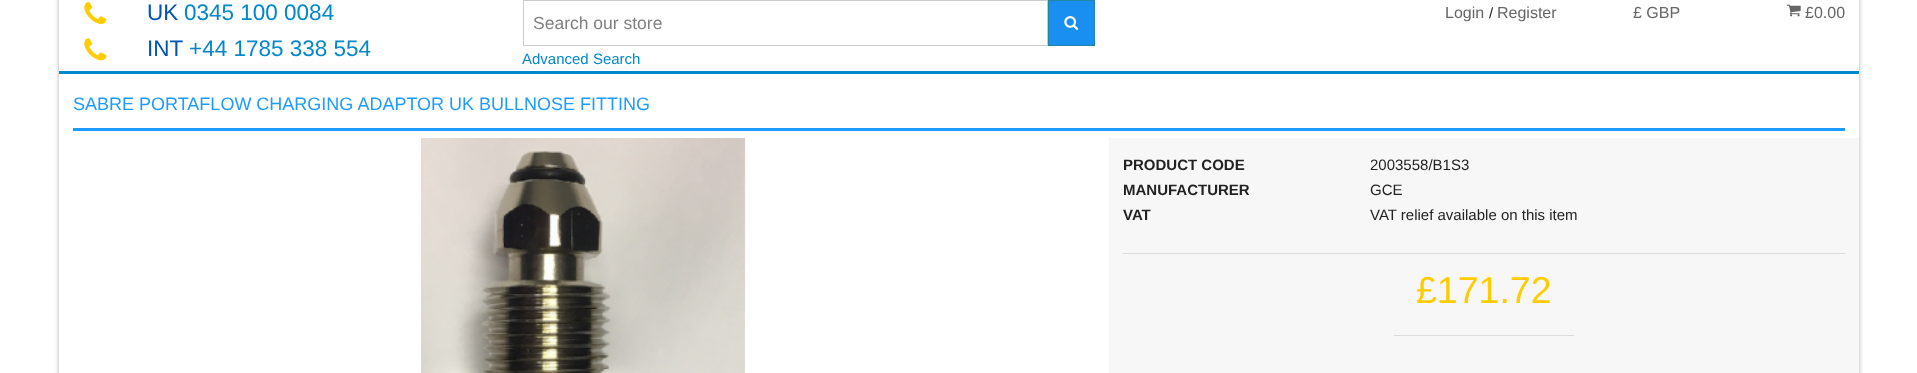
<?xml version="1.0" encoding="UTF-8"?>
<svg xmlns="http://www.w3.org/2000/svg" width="1917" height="373">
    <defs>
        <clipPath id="clip1"><path d="M 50 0 H 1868 V 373 H 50 Z M 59 -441 H 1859 V 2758 H 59 Z" clip-rule="evenodd"/></clipPath>
        <filter id="blur1" x="-50%" y="-200%" width="200%" height="500%"><feGaussianBlur stdDeviation="2.5"/></filter>
    </defs>
    <rect width="100%" height="100%" fill="#FFFFFF"/>
    <g clip-path="url(#clip1)">
        <rect x="59" y="-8" width="1800" height="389" fill="#000000" fill-opacity="0.3" filter="url(#blur1)"/>
    </g>
    <rect x="1858" y="0" width="1" height="71" fill="#FFFFFF"/>
    <rect x="59" y="71" width="1800" height="3" fill="#0088CC"/>
    <image x="84" y="2" width="23" height="23" href="img_01.png"/>
    <text x="147" y="20" font-family="Liberation Sans" font-size="22.5" fill="#0054B2">UK</text>
    <text x="184" y="20" font-family="Liberation Sans" font-size="22.5" fill="#0088CC">0345 100 0084</text>
    <image x="84" y="38" width="23" height="23" href="img_02.png"/>
    <text x="147" y="56" font-family="Liberation Sans" font-size="22.5" fill="#0054B2">INT</text>
    <text x="189" y="56" font-family="Liberation Sans" font-size="22.5" fill="#0088CC">+44 1785 338 554</text>
    <text x="1445" y="18" font-family="Liberation Sans" font-size="16" fill="#666666">Login</text>
    <text x="1489" y="18" font-family="Liberation Sans" font-size="15" fill="#222222">/</text>
    <text x="1497" y="18" font-family="Liberation Sans" font-size="16" fill="#666666">Register</text>
    <text x="1633" y="18" font-family="Liberation Sans" font-size="16" fill="#666666">£ GBP</text>
    <image x="1786" y="4" width="15" height="13" href="img_03.png"/>
    <text x="1805" y="18" font-family="Liberation Sans" font-size="16" fill="#666666">£0.00</text>
    <rect x="523.5" y="0.5" width="524" height="45" fill="none" stroke="#CCCCCC"/>
    <text x="533" y="29" font-family="Liberation Sans" font-size="17.5" fill="#808080">Search our store</text>
    <text x="522" y="64" font-family="Liberation Sans" font-size="15" fill="#0088CC">Advanced Search</text>
    <rect x="1048.5" y="0.5" width="46" height="45" fill="#1990F1" stroke="#2285A2"/>
    <image x="1064" y="16" width="15" height="14" href="img_04.png"/>
    <rect x="73" y="128" width="1772" height="3" fill="#1D9BFF"/>
    <text x="73" y="110" font-family="Liberation Sans" font-size="18" fill="#1D9BFF">SABRE PORTAFLOW CHARGING ADAPTOR UK BULLNOSE FITTING</text>
    <image x="421" y="138" width="325" height="235" href="img_05.png"/>
    <rect x="1109" y="138" width="750" height="235" fill="#000000" fill-opacity="0.03"/>
    <text x="1123" y="170" font-family="Liberation Sans" font-size="15" font-weight="700" fill="#222222">PRODUCT CODE</text>
    <text x="1370" y="170" font-family="Liberation Sans" font-size="15" fill="#222222">2003558/B1S3</text>
    <text x="1123" y="195" font-family="Liberation Sans" font-size="15" font-weight="700" fill="#222222">MANUFACTURER</text>
    <text x="1370" y="195" font-family="Liberation Sans" font-size="15" fill="#222222">GCE</text>
    <text x="1123" y="220" font-family="Liberation Sans" font-size="15" font-weight="700" fill="#222222">VAT</text>
    <text x="1370" y="220" font-family="Liberation Sans" font-size="15" fill="#222222">VAT relief available on this item</text>
    <rect x="1123" y="253" width="722" height="1" fill="#DDDDDD"/>
    <text x="1416" y="303" font-family="Liberation Sans" font-size="37.5" fill="#FFCC00">£171.72</text>
    <rect x="1394" y="335" width="180" height="1" fill="#DDDDDD"/>
</svg>
